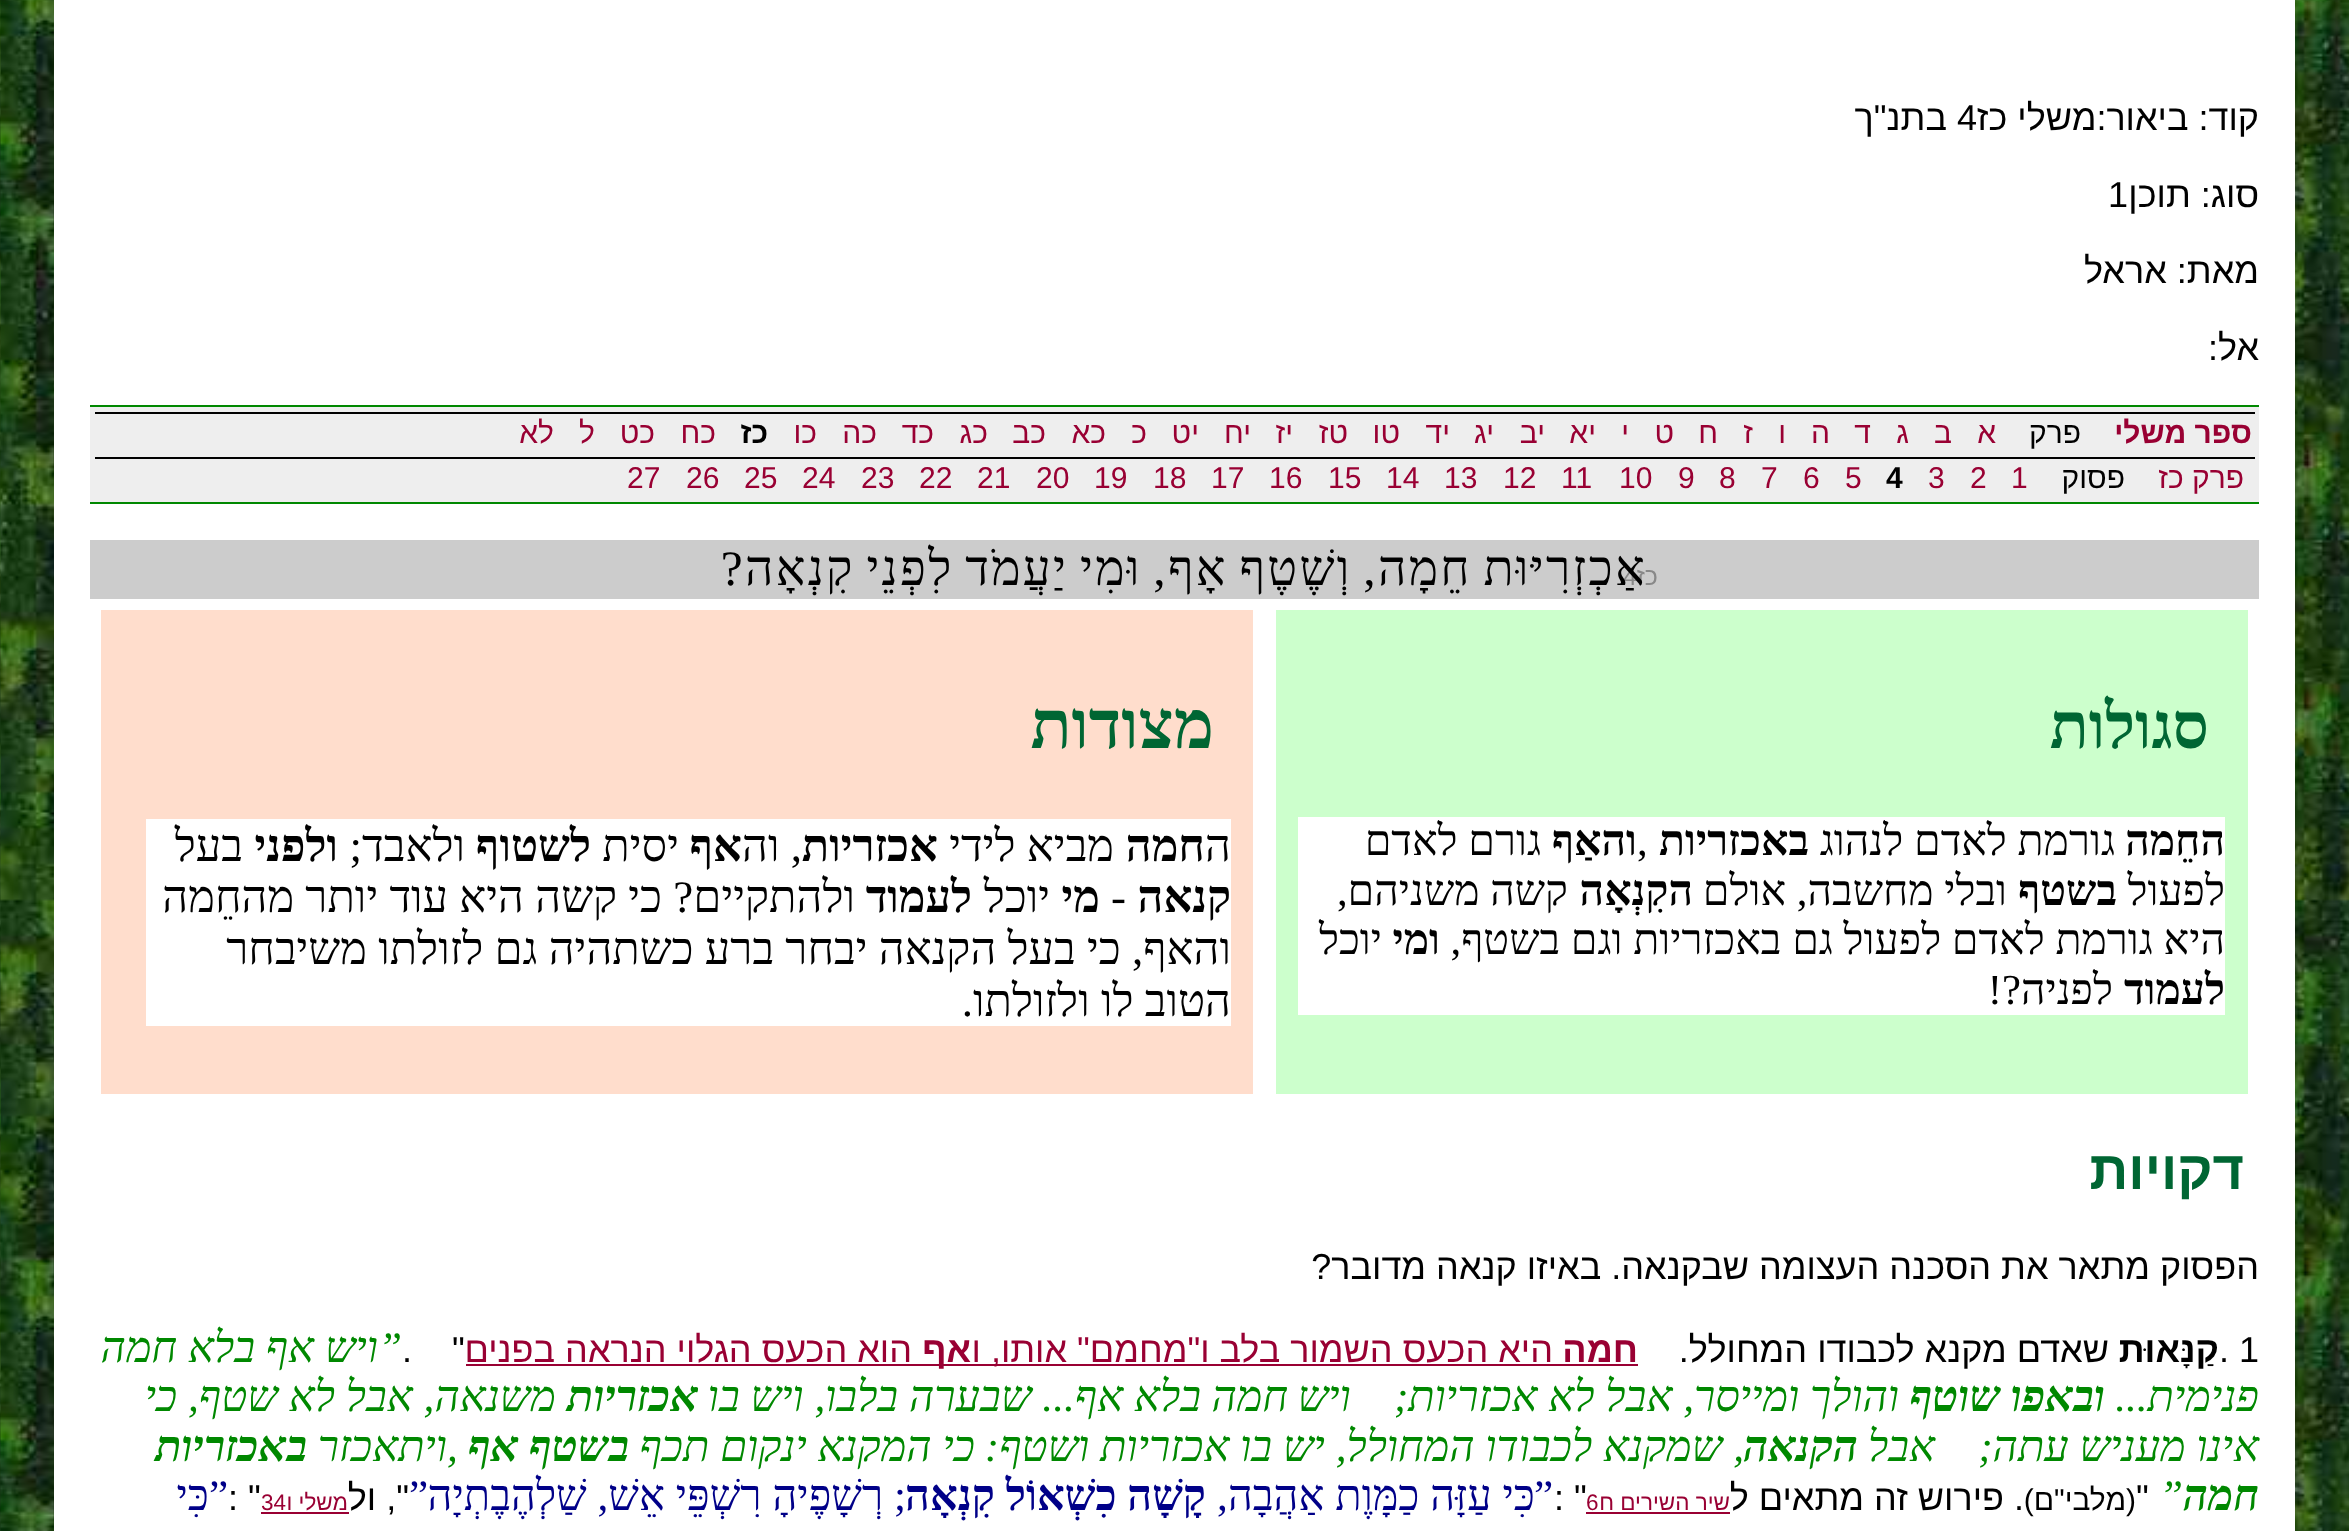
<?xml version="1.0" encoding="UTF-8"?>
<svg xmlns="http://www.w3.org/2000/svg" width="2349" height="1531">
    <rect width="100%" height="100%" fill="#FFFFFF"/>
    <image x="0" y="0" width="2349" height="1531" href="img_01.png"/>
    <rect x="54" y="0" width="2241" height="1531" fill="#FFFFFF"/>
    <text x="2259" y="130" font-family="Liberation Sans" font-size="36" direction="rtl" fill="#000000">קוד: ביאור:משלי כז</text>
    <text x="1957" y="130" font-family="Liberation Sans" font-size="36" fill="#000000">4</text>
    <text x="1947" y="130" font-family="Liberation Sans" font-size="36" direction="rtl" fill="#000000">בתנ"ך</text>
    <text x="2259" y="207" font-family="Liberation Sans" font-size="36" direction="rtl" fill="#000000">סוג: תוכן</text>
    <text x="2108" y="207" font-family="Liberation Sans" font-size="36" fill="#000000">1</text>
    <text x="2259" y="283" font-family="Liberation Sans" font-size="36" direction="rtl" fill="#000000">מאת: אראל</text>
    <text x="2259" y="360" font-family="Liberation Sans" font-size="36" direction="rtl" fill="#000000">אל:</text>
    <rect x="90" y="407" width="2169" height="95" fill="#EEEEEE"/>
    <rect x="90" y="405" width="2169" height="2" fill="#008800"/>
    <rect x="90" y="502" width="2169" height="2" fill="#008800"/>
    <rect x="95" y="412" width="2160" height="2" fill="#000000"/>
    <text x="2252" y="443" font-family="Liberation Sans" font-size="30" font-weight="700" direction="rtl" fill="#990033">ספר משלי</text>
    <text x="2081" y="443" font-family="Liberation Sans" font-size="30" direction="rtl" fill="#000000">פרק</text>
    <text x="1996" y="443" font-family="Liberation Sans" font-size="30" direction="rtl" fill="#990033">א</text>
    <text x="1952" y="443" font-family="Liberation Sans" font-size="30" direction="rtl" fill="#990033">ב</text>
    <text x="1909" y="443" font-family="Liberation Sans" font-size="30" direction="rtl" fill="#990033">ג</text>
    <text x="1871" y="443" font-family="Liberation Sans" font-size="30" direction="rtl" fill="#990033">ד</text>
    <text x="1830" y="443" font-family="Liberation Sans" font-size="30" direction="rtl" fill="#990033">ה</text>
    <text x="1786" y="443" font-family="Liberation Sans" font-size="30" direction="rtl" fill="#990033">ו</text>
    <text x="1753" y="443" font-family="Liberation Sans" font-size="30" direction="rtl" fill="#990033">ז</text>
    <text x="1718" y="443" font-family="Liberation Sans" font-size="30" direction="rtl" fill="#990033">ח</text>
    <text x="1674" y="443" font-family="Liberation Sans" font-size="30" direction="rtl" fill="#990033">ט</text>
    <text x="1629" y="443" font-family="Liberation Sans" font-size="30" direction="rtl" fill="#990033">י</text>
    <text x="1596" y="443" font-family="Liberation Sans" font-size="30" direction="rtl" fill="#990033">יא</text>
    <text x="1545" y="443" font-family="Liberation Sans" font-size="30" direction="rtl" fill="#990033">יב</text>
    <text x="1494" y="443" font-family="Liberation Sans" font-size="30" direction="rtl" fill="#990033">יג</text>
    <text x="1450" y="443" font-family="Liberation Sans" font-size="30" direction="rtl" fill="#990033">יד</text>
    <text x="1400" y="443" font-family="Liberation Sans" font-size="30" direction="rtl" fill="#990033">טו</text>
    <text x="1348" y="443" font-family="Liberation Sans" font-size="30" direction="rtl" fill="#990033">טז</text>
    <text x="1293" y="443" font-family="Liberation Sans" font-size="30" direction="rtl" fill="#990033">יז</text>
    <text x="1251" y="443" font-family="Liberation Sans" font-size="30" direction="rtl" fill="#990033">יח</text>
    <text x="1199" y="443" font-family="Liberation Sans" font-size="30" direction="rtl" fill="#990033">יט</text>
    <text x="1147" y="443" font-family="Liberation Sans" font-size="30" direction="rtl" fill="#990033">כ</text>
    <text x="1106" y="443" font-family="Liberation Sans" font-size="30" direction="rtl" fill="#990033">כא</text>
    <text x="1046" y="443" font-family="Liberation Sans" font-size="30" direction="rtl" fill="#990033">כב</text>
    <text x="988" y="443" font-family="Liberation Sans" font-size="30" direction="rtl" fill="#990033">כג</text>
    <text x="934" y="443" font-family="Liberation Sans" font-size="30" direction="rtl" fill="#990033">כד</text>
    <text x="877" y="443" font-family="Liberation Sans" font-size="30" direction="rtl" fill="#990033">כה</text>
    <text x="817" y="443" font-family="Liberation Sans" font-size="30" direction="rtl" fill="#990033">כו</text>
    <text x="768" y="443" font-family="Liberation Sans" font-size="30" font-weight="700" direction="rtl" fill="#000000">כז</text>
    <text x="716" y="443" font-family="Liberation Sans" font-size="30" direction="rtl" fill="#990033">כח</text>
    <text x="655" y="443" font-family="Liberation Sans" font-size="30" direction="rtl" fill="#990033">כט</text>
    <text x="595" y="443" font-family="Liberation Sans" font-size="30" direction="rtl" fill="#990033">ל</text>
    <text x="554" y="443" font-family="Liberation Sans" font-size="30" direction="rtl" fill="#990033">לא</text>
    <rect x="95" y="457" width="2160" height="2" fill="#000000"/>
    <text x="2244" y="488" font-family="Liberation Sans" font-size="30" direction="rtl" fill="#990033">פרק כז</text>
    <text x="2125" y="488" font-family="Liberation Sans" font-size="30" direction="rtl" fill="#000000">פסוק</text>
    <text x="2011" y="488" font-family="Liberation Sans" font-size="30" fill="#990033">1</text>
    <text x="1970" y="488" font-family="Liberation Sans" font-size="30" fill="#990033">2</text>
    <text x="1928" y="488" font-family="Liberation Sans" font-size="30" fill="#990033">3</text>
    <text x="1886" y="488" font-family="Liberation Sans" font-size="30" font-weight="700" fill="#000000">4</text>
    <text x="1845" y="488" font-family="Liberation Sans" font-size="30" fill="#990033">5</text>
    <text x="1803" y="488" font-family="Liberation Sans" font-size="30" fill="#990033">6</text>
    <text x="1761" y="488" font-family="Liberation Sans" font-size="30" fill="#990033">7</text>
    <text x="1719" y="488" font-family="Liberation Sans" font-size="30" fill="#990033">8</text>
    <text x="1678" y="488" font-family="Liberation Sans" font-size="30" fill="#990033">9</text>
    <text x="1619" y="488" font-family="Liberation Sans" font-size="30" fill="#990033">10</text>
    <text x="1561" y="488" font-family="Liberation Sans" font-size="30" fill="#990033">11</text>
    <text x="1503" y="488" font-family="Liberation Sans" font-size="30" fill="#990033">12</text>
    <text x="1444" y="488" font-family="Liberation Sans" font-size="30" fill="#990033">13</text>
    <text x="1386" y="488" font-family="Liberation Sans" font-size="30" fill="#990033">14</text>
    <text x="1328" y="488" font-family="Liberation Sans" font-size="30" fill="#990033">15</text>
    <text x="1269" y="488" font-family="Liberation Sans" font-size="30" fill="#990033">16</text>
    <text x="1211" y="488" font-family="Liberation Sans" font-size="30" fill="#990033">17</text>
    <text x="1153" y="488" font-family="Liberation Sans" font-size="30" fill="#990033">18</text>
    <text x="1094" y="488" font-family="Liberation Sans" font-size="30" fill="#990033">19</text>
    <text x="1036" y="488" font-family="Liberation Sans" font-size="30" fill="#990033">20</text>
    <text x="977" y="488" font-family="Liberation Sans" font-size="30" fill="#990033">21</text>
    <text x="919" y="488" font-family="Liberation Sans" font-size="30" fill="#990033">22</text>
    <text x="861" y="488" font-family="Liberation Sans" font-size="30" fill="#990033">23</text>
    <text x="802" y="488" font-family="Liberation Sans" font-size="30" fill="#990033">24</text>
    <text x="744" y="488" font-family="Liberation Sans" font-size="30" fill="#990033">25</text>
    <text x="686" y="488" font-family="Liberation Sans" font-size="30" fill="#990033">26</text>
    <text x="627" y="488" font-family="Liberation Sans" font-size="30" fill="#990033">27</text>
    <rect x="90" y="540" width="2169" height="59" fill="#CCCCCC"/>
    <text x="1658" y="585" font-family="Liberation Sans" font-size="25" direction="rtl" fill="#888888">כז</text>
    <text x="1623" y="585" font-family="Liberation Sans" font-size="25" fill="#888888">4</text>
    <text x="1647" y="585" word-spacing="-3" font-family="Liberation Serif" font-size="49.5" letter-spacing="2.25" direction="rtl" fill="#000000">אַכְזְרִיּוּת חֵמָה, וְשֶׁטֶף אָף, וּמִי יַעֲמֹד לִפְנֵי קִנְאָה?</text>
    <rect x="1276" y="610" width="972" height="484" fill="#CCFFCC"/>
    <text x="2209" y="748" font-family="Liberation Serif" font-size="64" font-weight="700" direction="rtl" fill="#006633">סגולות</text>
    <rect x="1298" y="817" width="927" height="198" fill="#FFFFFF"/>
    <text x="2225" y="855" font-family="Liberation Serif" font-size="42.75" font-weight="700" direction="rtl" fill="#000000">החֵמה</text>
    <text x="2115" y="855" font-family="Liberation Serif" font-size="42.75" direction="rtl" fill="#000000">גורמת לאדם לנהוג</text>
    <text x="1809" y="855" font-family="Liberation Serif" font-size="42.75" font-weight="700" direction="rtl" fill="#000000">באכזריות</text>
    <text x="1637" y="855" font-family="Liberation Serif" font-size="42.75" fill="#000000">,</text>
    <text x="1637" y="855" font-family="Liberation Serif" font-size="42.75" font-weight="700" direction="rtl" fill="#000000">והאַף</text>
    <text x="1541" y="855" font-family="Liberation Serif" font-size="42.75" direction="rtl" fill="#000000">גורם לאדם</text>
    <text x="2225" y="905" font-family="Liberation Serif" font-size="42.75" direction="rtl" fill="#000000">לפעול</text>
    <text x="2117" y="905" font-family="Liberation Serif" font-size="42.75" font-weight="700" direction="rtl" fill="#000000">בשטף</text>
    <text x="2007" y="905" font-family="Liberation Serif" font-size="42.75" direction="rtl" fill="#000000">ובלי מחשבה, אולם</text>
    <text x="1693" y="905" font-family="Liberation Serif" font-size="42.75" font-weight="700" direction="rtl" fill="#000000">הקִנְאָה</text>
    <text x="1568" y="905" font-family="Liberation Serif" font-size="42.75" direction="rtl" fill="#000000">קשה משניהם,</text>
    <text x="2225" y="954" font-family="Liberation Serif" font-size="42.75" direction="rtl" fill="#000000">היא גורמת לאדם לפעול גם באכזריות וגם בשטף,</text>
    <text x="1440" y="954" font-family="Liberation Serif" font-size="42.75" font-weight="700" direction="rtl" fill="#000000">ומי</text>
    <text x="1382" y="954" font-family="Liberation Serif" font-size="42.75" direction="rtl" fill="#000000">יוכל</text>
    <text x="2225" y="1004" font-family="Liberation Serif" font-size="42.75" font-weight="700" direction="rtl" fill="#000000">לעמוד</text>
    <text x="2113" y="1004" font-family="Liberation Serif" font-size="42.75" direction="rtl" fill="#000000">לפניה?!</text>
    <rect x="101" y="610" width="1152" height="484" fill="#FFDDCC"/>
    <text x="1214" y="748" font-family="Liberation Serif" font-size="67.5" font-weight="700" direction="rtl" fill="#006633">מצודות</text>
    <rect x="146" y="819" width="1085" height="207" fill="#FFFFFF"/>
    <text x="1231" y="861" font-family="Liberation Serif" font-size="45" direction="rtl" fill="#000000">ה</text>
    <text x="1205" y="861" font-family="Liberation Serif" font-size="45" font-weight="700" direction="rtl" fill="#000000">חמה</text>
    <text x="1114" y="861" font-family="Liberation Serif" font-size="45" direction="rtl" fill="#000000">מביא לידי</text>
    <text x="938" y="861" font-family="Liberation Serif" font-size="45" font-weight="700" direction="rtl" fill="#000000">אכזריות</text>
    <text x="802" y="861" font-family="Liberation Serif" font-size="45" direction="rtl" fill="#000000">, וה</text>
    <text x="742" y="861" font-family="Liberation Serif" font-size="45" font-weight="700" direction="rtl" fill="#000000">אף</text>
    <text x="679" y="861" font-family="Liberation Serif" font-size="45" direction="rtl" fill="#000000">יסית</text>
    <text x="591" y="861" font-family="Liberation Serif" font-size="45" font-weight="700" direction="rtl" fill="#000000">לשטוף</text>
    <text x="465" y="861" font-family="Liberation Serif" font-size="45" direction="rtl" fill="#000000">ולאבד;</text>
    <text x="338" y="861" font-family="Liberation Serif" font-size="45" font-weight="700" direction="rtl" fill="#000000">ולפני</text>
    <text x="243" y="861" font-family="Liberation Serif" font-size="45" direction="rtl" fill="#000000">בעל</text>
    <text x="1231" y="912" font-family="Liberation Serif" font-size="45" font-weight="700" direction="rtl" fill="#000000">קנאה</text>
    <text x="1111" y="912" font-family="Liberation Serif" font-size="45" fill="#000000">-</text>
    <text x="1100" y="912" font-family="Liberation Serif" font-size="45" font-weight="700" direction="rtl" fill="#000000">מי</text>
    <text x="1050" y="912" font-family="Liberation Serif" font-size="45" direction="rtl" fill="#000000">יוכל</text>
    <text x="972" y="912" font-family="Liberation Serif" font-size="45" font-weight="700" direction="rtl" fill="#000000">לעמוד</text>
    <text x="855" y="912" font-family="Liberation Serif" font-size="45" direction="rtl" fill="#000000">ולהתקיים? כי קשה היא עוד יותר מהחֵמה</text>
    <text font-family="Liberation Serif" font-size="45" direction="rtl" fill="#000000">
        <tspan x="1231" y="964">והאף, כי בעל הקנאה יבחר ברע כשתהיה גם לזולתו משיבחר</tspan>
        <tspan x="1231" y="1016">הטוב לו ולזולתו.</tspan>
    </text>
    <text x="2244" y="1189" font-family="Liberation Sans" font-size="54" font-weight="700" direction="rtl" fill="#006633">דקויות</text>
    <text x="2259" y="1279" font-family="Liberation Sans" font-size="36" direction="rtl" fill="#000000">הפסוק מתאר את הסכנה העצומה שבקנאה. באיזו קנאה מדובר?</text>
    <text x="2219" y="1362" font-family="Liberation Sans" font-size="36" fill="#000000">. 1</text>
    <text x="2219" y="1362" font-family="Liberation Sans" font-size="36" font-weight="700" direction="rtl" fill="#000000">קַנָּאוּת</text>
    <text x="2109" y="1362" font-family="Liberation Sans" font-size="36" direction="rtl" fill="#000000">שאדם מקנא לכבודו המחולל.</text>
    <text x="1638" y="1362" font-family="Liberation Sans" font-size="36" font-weight="700" direction="rtl" fill="#990033">חמה</text>
    <rect x="466" y="1364" width="1172" height="2" fill="#990033"/>
    <text x="1553" y="1362" font-family="Liberation Sans" font-size="36" direction="rtl" fill="#990033">היא הכעס השמור בלב ו"מחמם" אותו, ו</text>
    <text x="971" y="1362" font-family="Liberation Sans" font-size="36" font-weight="700" direction="rtl" fill="#990033">אף</text>
    <text x="912" y="1362" font-family="Liberation Sans" font-size="36" direction="rtl" fill="#990033">הוא הכעס הגלוי הנראה בפנים</text>
    <text x="402" y="1362" font-family="Liberation Sans" font-size="36" fill="#000000" xml:space="preserve">.    "</text>
    <text x="378" y="1362" font-family="Liberation Serif" font-size="43.25" font-style="italic" fill="#008800">”</text>
    <text x="378" y="1362" font-family="Liberation Serif" font-size="43.25" font-style="italic" direction="rtl" fill="#008800">ויש</text>
    <text x="314" y="1362" font-family="Liberation Serif" font-size="43.25" font-style="italic" direction="rtl" fill="#008800">אף</text>
    <text x="255" y="1362" font-family="Liberation Serif" font-size="43.25" font-style="italic" direction="rtl" fill="#008800">בלא חמה</text>
    <text x="2259" y="1411" font-family="Liberation Serif" font-size="43.25" font-style="italic" direction="rtl" fill="#008800">פנימית...</text>
    <text x="2105" y="1411" font-family="Liberation Serif" font-size="43.25" font-weight="700" font-style="italic" direction="rtl" fill="#008800">ובאפו שוטף</text>
    <text x="1899" y="1411" font-family="Liberation Serif" font-size="43.25" font-style="italic" direction="rtl" fill="#008800" xml:space="preserve">והולך ומייסר, אבל לא אכזריות;    ויש</text>
    <text x="1288" y="1411" font-family="Liberation Serif" font-size="43.25" font-style="italic" direction="rtl" fill="#008800">חמה</text>
    <text x="1201" y="1411" font-family="Liberation Serif" font-size="43.25" font-style="italic" direction="rtl" fill="#008800">בלא אף... שבערה בלבו, ויש בו</text>
    <text x="698" y="1411" font-family="Liberation Serif" font-size="43.25" font-weight="700" font-style="italic" direction="rtl" fill="#008800">אכזריות</text>
    <text x="556" y="1411" font-family="Liberation Serif" font-size="43.25" font-style="italic" direction="rtl" fill="#008800">משנאה, אבל לא שטף, כי</text>
    <text x="2259" y="1461" font-family="Liberation Serif" font-size="43.25" font-style="italic" direction="rtl" fill="#008800" xml:space="preserve">אינו מעניש עתה;    אבל</text>
    <text x="1858" y="1461" font-family="Liberation Serif" font-size="43.25" font-weight="700" font-style="italic" direction="rtl" fill="#008800">הקנאה</text>
    <text x="1744" y="1461" font-family="Liberation Serif" font-size="43.25" font-style="italic" direction="rtl" fill="#008800">, שמקנא לכבודו המחולל, יש בו אכזריות ושטף:</text>
    <text x="975" y="1461" font-family="Liberation Serif" font-size="43.25" font-style="italic" direction="rtl" fill="#008800">כי המקנא ינקום תכף</text>
    <text x="629" y="1461" font-family="Liberation Serif" font-size="43.25" font-weight="700" font-style="italic" direction="rtl" fill="#008800">בשטף אף</text>
    <text x="447" y="1461" font-family="Liberation Serif" font-size="43.25" font-style="italic" fill="#008800">,</text>
    <text x="447" y="1461" font-family="Liberation Serif" font-size="43.25" font-style="italic" direction="rtl" fill="#008800">ויתאכזר</text>
    <text x="307" y="1461" font-family="Liberation Serif" font-size="43.25" font-weight="700" font-style="italic" direction="rtl" fill="#008800">באכזריות</text>
    <text x="2259" y="1510" font-family="Liberation Serif" font-size="43.25" font-weight="700" font-style="italic" direction="rtl" fill="#008800">חמה</text>
    <text x="2159" y="1510" font-family="Liberation Serif" font-size="43.25" font-style="italic" fill="#008800">”</text>
    <text x="2136" y="1510" font-family="Liberation Sans" font-size="36" fill="#000000">"</text>
    <text x="2136" y="1510" font-family="Liberation Sans" font-size="30" direction="rtl" fill="#000000">(מלבי"ם)</text>
    <text x="2024" y="1510" font-family="Liberation Sans" font-size="36" direction="rtl" fill="#000000">. פירוש זה מתאים ל</text>
    <text x="1554" y="1510" font-family="Liberation Sans" font-size="36" fill="#000000">: "</text>
    <text x="1534" y="1510" font-family="Liberation Serif" font-size="43.25" fill="#000088">”</text>
    <text x="1535" y="1510" font-family="Liberation Serif" font-size="43.25" direction="rtl" fill="#000088">כִּי עַזָּה כַמָּוֶת אַהֲבָה,</text>
    <text x="1206" y="1510" font-family="Liberation Serif" font-size="43.25" font-weight="700" direction="rtl" fill="#000088">קָשָׁה כִשְׁאוֹל קִנְאָה</text>
    <text x="906" y="1510" font-family="Liberation Serif" font-size="43.25" direction="rtl" fill="#000088">; רְשָׁפֶיהָ רִשְׁפֵּי אֵשׁ, שַׁלְהֶבֶתְיָה</text>
    <text x="409" y="1510" font-family="Liberation Serif" font-size="43.25" fill="#000088">”</text>
    <text x="409" y="1510" font-family="Liberation Sans" font-size="36" direction="rtl" fill="#000000">", ול</text>
    <text x="228" y="1510" font-family="Liberation Sans" font-size="36" fill="#000000">: "</text>
    <text x="209" y="1510" font-family="Liberation Serif" font-size="43.25" fill="#000088">”</text>
    <text x="209" y="1510" font-family="Liberation Serif" font-size="43.25" direction="rtl" fill="#000088">כִּי</text>
    <text x="1730" y="1510" font-family="Liberation Sans" font-size="22.5" direction="rtl" fill="#990033">שיר השירים ח</text>
    <rect x="1586" y="1512" width="144" height="2" fill="#990033"/>
    <text x="1586" y="1510" font-family="Liberation Sans" font-size="22.5" fill="#990033">6</text>
    <text x="348" y="1510" font-family="Liberation Sans" font-size="22.5" direction="rtl" fill="#990033">משלי ו</text>
    <text x="261" y="1510" font-family="Liberation Sans" font-size="22.5" fill="#990033">34</text>
    <rect x="261" y="1512" width="88" height="2" fill="#990033"/>
</svg>
